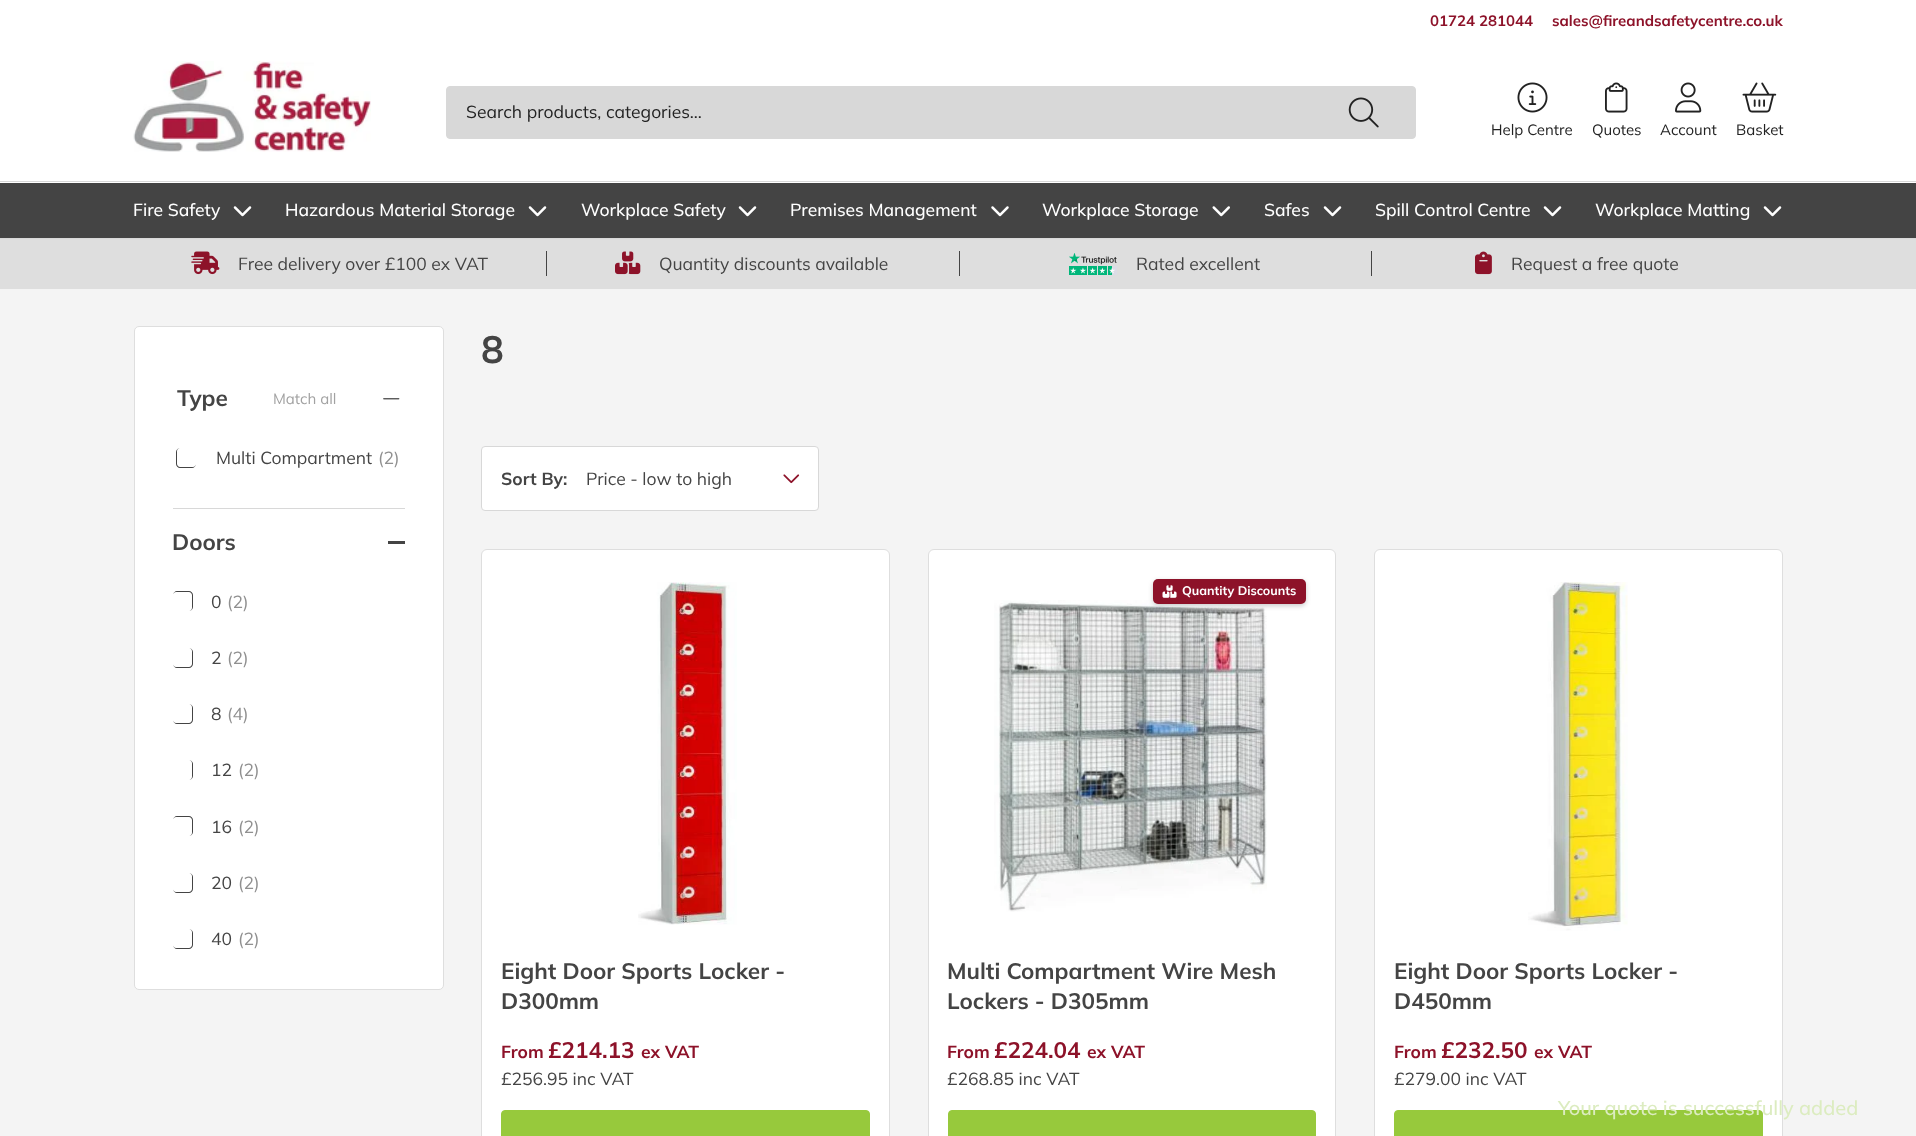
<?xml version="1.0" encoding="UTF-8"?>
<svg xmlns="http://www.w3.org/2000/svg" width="1916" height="1136">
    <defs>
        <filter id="blur1" x="-50%" y="-200%" width="200%" height="500%"><feGaussianBlur stdDeviation="2.5"/></filter>
    </defs>
    <rect width="100%" height="100%" fill="#FFFFFF"/>
    <text x="1430" y="26" font-family="Muli" font-size="15" font-weight="700" fill="#8D1229">01724 281044</text>
    <text x="1552" y="26" font-family="Muli" font-size="15" font-weight="700" fill="#8D1229">sales@fireandsafetycentre.co.uk</text>
    <rect x="0" y="238" width="1916" height="1" fill="#D8D8D8"/>
    <rect x="0" y="181" width="1916" height="1" fill="#D8D8D8"/>
    <image x="133" y="61" width="238" height="91" href="img_01.png"/>
    <rect x="446.5" y="86.5" width="969" height="52" rx="3.5" fill="#D8D8D8" stroke="#D8D8D8"/>
    <text x="466" y="118" font-family="Muli" font-size="17.5" fill="#222222">Search products, categories...</text>
    <image x="1348" y="97" width="31" height="31" href="img_02.png"/>
    <image x="1517" y="82" width="31" height="31" href="img_03.png"/>
    <text x="1491" y="135" font-family="Muli" font-size="15" fill="#222222">Help Centre</text>
    <image x="1605" y="82" width="23" height="31" href="img_04.png"/>
    <text x="1592" y="135" font-family="Muli" font-size="15" fill="#222222">Quotes</text>
    <image x="1675" y="82" width="27" height="31" href="img_05.png"/>
    <text x="1660" y="135" font-family="Muli" font-size="15" fill="#222222">Account</text>
    <image x="1742" y="82" width="35" height="31" href="img_06.png"/>
    <text x="1736" y="135" font-family="Muli" font-size="15" fill="#222222">Basket</text>
    <rect x="0" y="183" width="1916" height="55" fill="#444444"/>
    <text x="133" y="216" font-family="Muli" font-size="17.5" font-weight="500" fill="#FFFFFF">Fire Safety</text>
    <image x="233" y="206" width="19" height="11" href="img_07.png"/>
    <text x="285" y="216" font-family="Muli" font-size="17.5" font-weight="500" fill="#FFFFFF">Hazardous Material Storage</text>
    <image x="528" y="206" width="19" height="11" href="img_07.png"/>
    <text x="581" y="216" font-family="Muli" font-size="17.5" font-weight="500" fill="#FFFFFF">Workplace Safety</text>
    <image x="738" y="206" width="19" height="11" href="img_07.png"/>
    <text x="790" y="216" font-family="Muli" font-size="17.5" font-weight="500" fill="#FFFFFF">Premises Management</text>
    <image x="991" y="206" width="18" height="11" href="img_08.png"/>
    <text x="1042" y="216" font-family="Muli" font-size="17.5" font-weight="500" fill="#FFFFFF">Workplace Storage</text>
    <image x="1212" y="206" width="18" height="11" href="img_09.png"/>
    <text x="1264" y="216" font-family="Muli" font-size="17.5" font-weight="500" fill="#FFFFFF">Safes</text>
    <image x="1323" y="206" width="19" height="11" href="img_07.png"/>
    <text x="1375" y="216" font-family="Muli" font-size="17.5" font-weight="500" fill="#FFFFFF">Spill Control Centre</text>
    <image x="1543" y="206" width="19" height="11" href="img_07.png"/>
    <text x="1595" y="216" font-family="Muli" font-size="17.5" font-weight="500" fill="#FFFFFF">Workplace Matting</text>
    <image x="1763" y="206" width="19" height="11" href="img_07.png"/>
    <rect x="0" y="239" width="1916" height="50" fill="#DEDEDE"/>
    <image x="191" y="251" width="29" height="24" href="img_10.png"/>
    <text x="238" y="270" font-family="Muli" font-size="17.5" fill="#444444">Free delivery over £100 ex VAT</text>
    <rect x="546" y="251" width="1" height="25" fill="#444444"/>
    <image x="615" y="251" width="26" height="24" href="img_11.png"/>
    <text x="659" y="270" font-family="Muli" font-size="17.5" fill="#444444">Quantity discounts available</text>
    <rect x="959" y="251" width="1" height="25" fill="#444444"/>
    <image x="1069" y="253" width="48" height="22" href="img_12.png"/>
    <text x="1136" y="270" font-family="Muli" font-size="17.5" fill="#444444">Rated excellent</text>
    <rect x="1371" y="251" width="1" height="25" fill="#444444"/>
    <image x="1475" y="251" width="17" height="24" href="img_13.png"/>
    <text x="1511" y="270" font-family="Muli" font-size="17.5" fill="#444444">Request a free quote</text>
    <rect x="0" y="289" width="1916" height="847" fill="#F4F4F4"/>
    <rect x="134.5" y="326.5" width="309" height="663" rx="4.5" fill="#FFFFFF" stroke="#DEDEDE"/>
    <text x="177" y="406" font-family="Muli" font-size="22.5" font-weight="700" fill="#444444">Type</text>
    <text x="273" y="404" font-family="Muli" font-size="15" fill="#A2A2A2">Match all</text>
    <image x="383" y="398" width="17" height="2" href="img_14.png"/>
    <path d="M 180 448 C 178 448 176 450 176 452 V 464 C 176 466 178 468 180 468 H 192 C 194 468 196 466 196 464 C 196 465.5 194.5 467 193 467 H 180 C 178.5 467 177 465.5 177 464 V 451 C 177 449.5 178.5 448 180 448 Z" fill="#444444"/>
    <text x="216" y="464" font-family="Muli" font-size="17.5" fill="#444444">Multi Compartment</text>
    <text x="378" y="464" font-family="Muli" font-size="17.5" fill="#909090">(2)</text>
    <rect x="173" y="508" width="232" height="1" fill="#D8D8D8"/>
    <text x="172" y="550" font-family="Muli" font-size="22.5" font-weight="700" fill="#444444">Doors</text>
    <rect x="388" y="541" width="17" height="3" fill="#444444"/>
    <path d="M 176 592 H 189 C 190.5 592 192 593.5 192 595 V 608 C 192 609.5 190.5 611 189 611 C 191 611 193 609 193 607 V 595 C 193 593 191 591 189 591 H 177 C 175 591 173 593 173 595 C 173 593.5 174.5 592 176 592 Z" fill="#444444"/>
    <text x="211" y="608" font-family="Muli" font-size="17.5" fill="#444444">0</text>
    <text x="227" y="608" font-family="Muli" font-size="17.5" fill="#909090">(2)</text>
    <path d="M 177 668 H 189 C 191 668 193 666 193 664 V 652 C 193 650 191 648 189 648 C 190.5 648 192 649.5 192 651 V 664 C 192 665.5 190.5 667 189 667 H 176 C 174.5 667 173 665.5 173 664 C 173 666 175 668 177 668 Z" fill="#444444"/>
    <text x="211" y="664" font-family="Muli" font-size="17.5" fill="#444444">2</text>
    <text x="227" y="664" font-family="Muli" font-size="17.5" fill="#909090">(2)</text>
    <path d="M 177 724 H 189 C 191 724 193 722 193 720 V 708 C 193 706 191 704 189 704 C 190.5 704 192 705.5 192 707 V 720 C 192 721.5 190.5 723 189 723 H 176 C 174.5 723 173 721.5 173 720 C 173 722 175 724 177 724 Z" fill="#444444"/>
    <text x="211" y="720" font-family="Muli" font-size="17.5" fill="#444444">8</text>
    <text x="227" y="720" font-family="Muli" font-size="17.5" fill="#909090">(4)</text>
    <path d="M 193 776 V 764 C 193 762 191 760 189 760 C 190.5 760 192 761.5 192 763 V 777 C 192 778.5 190.5 780 189 780 C 191 780 193 778 193 776 Z" fill="#444444"/>
    <text x="211" y="776" font-family="Muli" font-size="17.5" fill="#444444">12</text>
    <text x="238" y="776" font-family="Muli" font-size="17.5" fill="#909090">(2)</text>
    <path d="M 176 817 H 189 C 190.5 817 192 818.5 192 820 V 833 C 192 834.5 190.5 836 189 836 C 191 836 193 834 193 832 V 820 C 193 818 191 816 189 816 H 177 C 175 816 173 818 173 820 C 173 818.5 174.5 817 176 817 Z" fill="#444444"/>
    <text x="211" y="833" font-family="Muli" font-size="17.5" fill="#444444">16</text>
    <text x="238" y="833" font-family="Muli" font-size="17.5" fill="#909090">(2)</text>
    <path d="M 177 893 H 189 C 191 893 193 891 193 889 V 877 C 193 875 191 873 189 873 C 190.5 873 192 874.5 192 876 V 889 C 192 890.5 190.5 892 189 892 H 176 C 174.5 892 173 890.5 173 889 C 173 891 175 893 177 893 Z" fill="#444444"/>
    <text x="211" y="889" font-family="Muli" font-size="17.5" fill="#444444">20</text>
    <text x="238" y="889" font-family="Muli" font-size="17.5" fill="#909090">(2)</text>
    <path d="M 177 949 H 189 C 191 949 193 947 193 945 V 933 C 193 931 191 929 189 929 C 190.5 929 192 930.5 192 932 V 945 C 192 946.5 190.5 948 189 948 H 176 C 174.5 948 173 946.5 173 945 C 173 947 175 949 177 949 Z" fill="#444444"/>
    <text x="211" y="945" font-family="Muli" font-size="17.5" fill="#444444">40</text>
    <text x="238" y="945" font-family="Muli" font-size="17.5" fill="#909090">(2)</text>
    <text x="481" y="363" font-family="Muli" font-size="38" font-weight="700" fill="#444444">8</text>
    <rect x="481.5" y="446.5" width="337" height="64" rx="3.5" fill="#FFFFFF" stroke="#D8D8D8"/>
    <text x="501" y="485" font-family="Muli" font-size="17.5" font-weight="700" fill="#444444">Sort By:</text>
    <text x="586" y="485" font-family="Muli" font-size="17.5" fill="#444444">Price - low to high</text>
    <image x="783" y="474" width="17" height="10" href="img_15.png"/>
    <rect x="481.5" y="549.5" width="408" height="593" rx="5.5" fill="#FFFFFF" stroke="#DEDEDE"/>
    <image x="638" y="582" width="99" height="343" href="img_16.png"/>
    <text font-family="Muli" font-size="22.5" font-weight="700" fill="#444444">
        <tspan x="501" y="979">Eight Door Sports Locker -</tspan>
        <tspan x="501" y="1009">D300mm</tspan>
    </text>
    <text x="501" y="1058" font-family="Muli" font-size="17.5" font-weight="700" fill="#8D1229">From</text>
    <text x="548" y="1058" font-family="Muli" font-size="22.5" font-weight="700" fill="#8D1229">£214.13</text>
    <text x="641" y="1058" font-family="Muli" font-size="17.5" font-weight="700" fill="#8D1229">ex VAT</text>
    <text x="501" y="1085" font-family="Muli" font-size="17.5" fill="#444444">£256.95 inc VAT</text>
    <rect x="501.5" y="1110.5" width="368" height="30" rx="3.5" fill="#97C93C" stroke="#97C93C"/>
    <rect x="928.5" y="549.5" width="407" height="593" rx="5.5" fill="#FFFFFF" stroke="#DEDEDE"/>
    <image x="994" y="600" width="273" height="312" href="img_18.png"/>
    <rect x="1153" y="581" width="153" height="25" rx="5" fill="#000000" fill-opacity="0.2" filter="url(#blur1)"/>
    <rect x="1153" y="579" width="153" height="25" rx="5" fill="#8D1229"/>
    <image x="1162" y="585" width="15" height="13" href="img_17.png"/>
    <text x="1182" y="595" font-family="Muli" font-size="12.5" font-weight="700" fill="#FFFFFF">Quantity Discounts</text>
    <text font-family="Muli" font-size="22.5" font-weight="700" fill="#444444">
        <tspan x="947" y="979">Multi Compartment Wire Mesh</tspan>
        <tspan x="947" y="1009">Lockers - D305mm</tspan>
    </text>
    <text x="947" y="1058" font-family="Muli" font-size="17.5" font-weight="700" fill="#8D1229">From</text>
    <text x="994" y="1058" font-family="Muli" font-size="22.5" font-weight="700" fill="#8D1229">£224.04</text>
    <text x="1087" y="1058" font-family="Muli" font-size="17.5" font-weight="700" fill="#8D1229">ex VAT</text>
    <text x="947" y="1085" font-family="Muli" font-size="17.5" fill="#444444">£268.85 inc VAT</text>
    <rect x="948.5" y="1110.5" width="367" height="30" rx="3.5" fill="#97C93C" stroke="#97C93C"/>
    <rect x="1374.5" y="549.5" width="408" height="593" rx="5.5" fill="#FFFFFF" stroke="#DEDEDE"/>
    <image x="1528" y="582" width="100" height="349" href="img_19.png"/>
    <text font-family="Muli" font-size="22.5" font-weight="700" fill="#444444">
        <tspan x="1394" y="979">Eight Door Sports Locker -</tspan>
        <tspan x="1394" y="1009">D450mm</tspan>
    </text>
    <text x="1394" y="1058" font-family="Muli" font-size="17.5" font-weight="700" fill="#8D1229">From</text>
    <text x="1441" y="1058" font-family="Muli" font-size="22.5" font-weight="700" fill="#8D1229">£232.50</text>
    <text x="1534" y="1058" font-family="Muli" font-size="17.5" font-weight="700" fill="#8D1229">ex VAT</text>
    <text x="1394" y="1085" font-family="Muli" font-size="17.5" fill="#444444">£279.00 inc VAT</text>
    <rect x="1394.5" y="1110.5" width="368" height="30" rx="3.5" fill="#97C93C" stroke="#97C93C"/>
    <text x="1558" y="1115" font-family="Muli" font-size="20" font-weight="500" fill="#DCECC0">Your quote is successfully added</text>
</svg>
